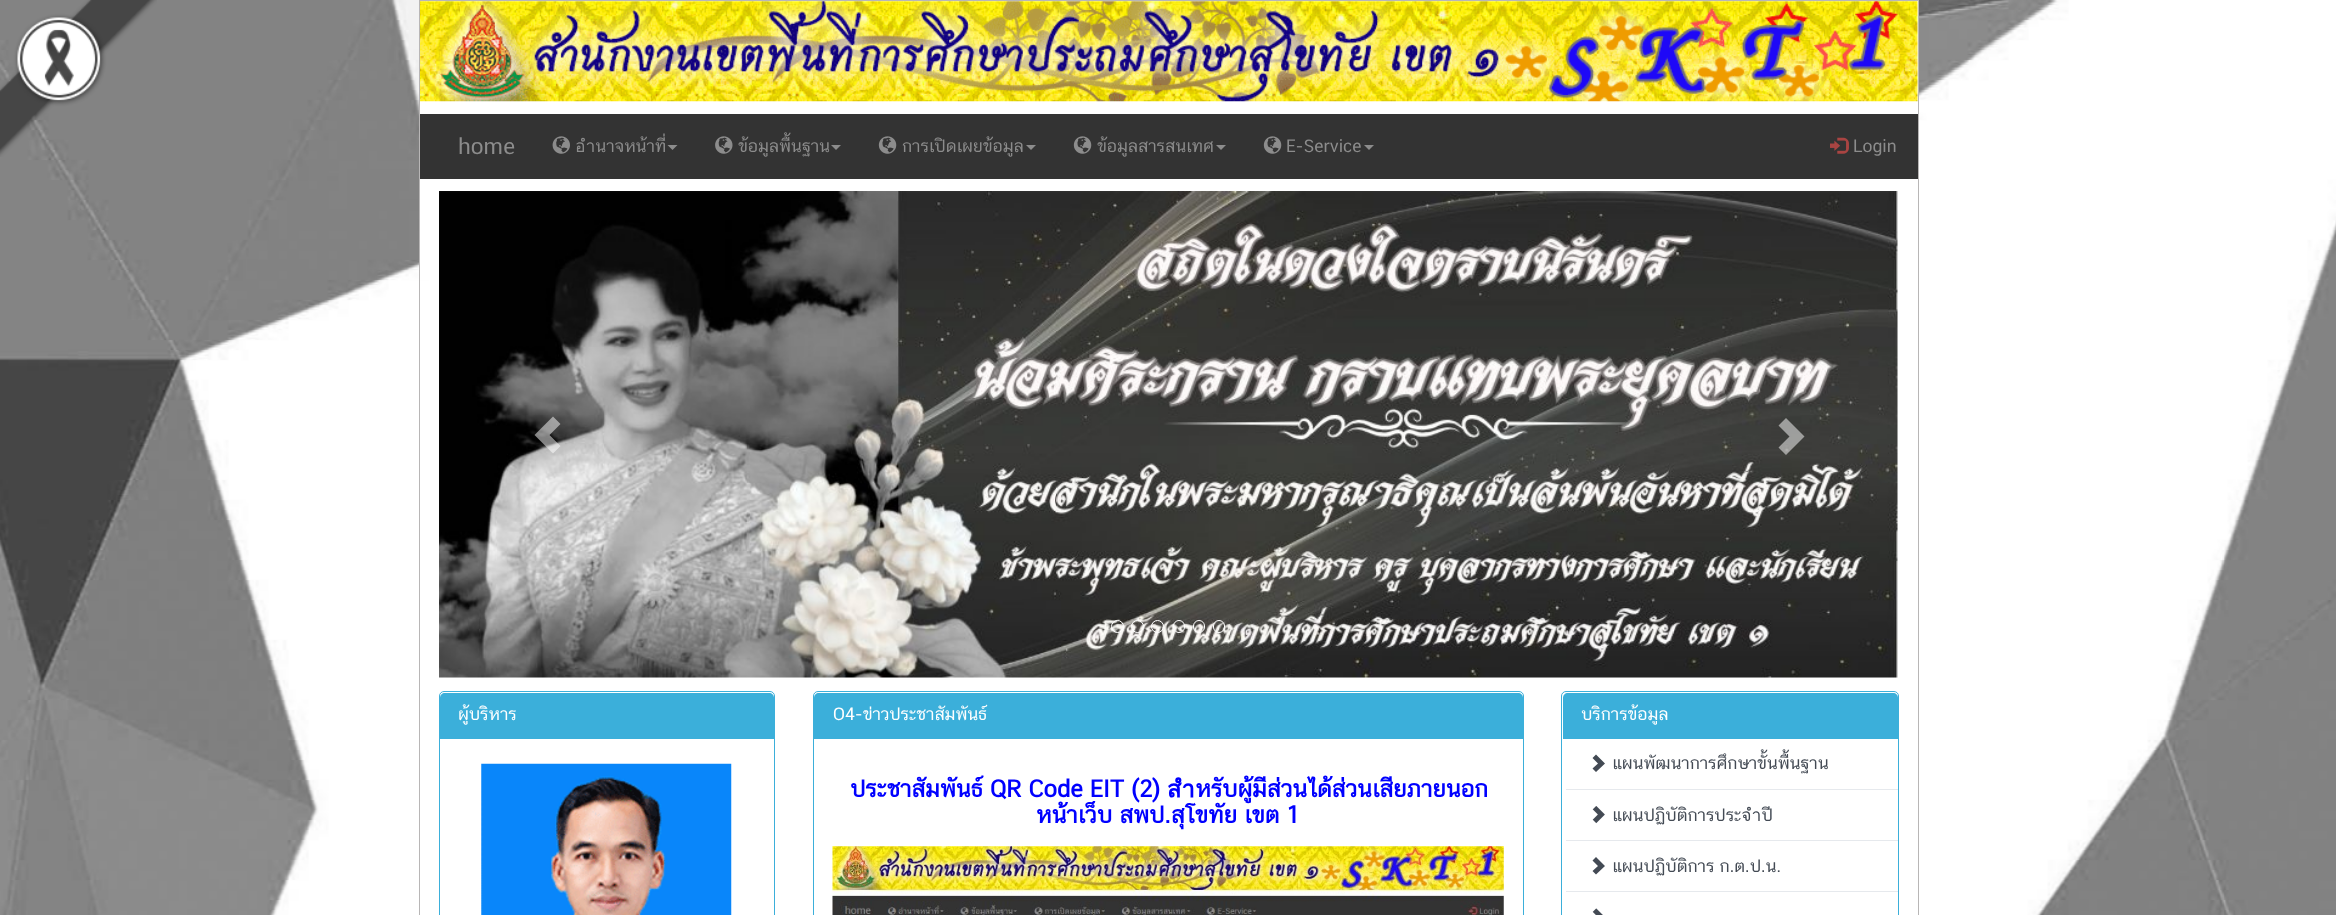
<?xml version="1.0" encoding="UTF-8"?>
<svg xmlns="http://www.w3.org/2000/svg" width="2336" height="915">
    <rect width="100%" height="100%" fill="#FFFFFF"/>
    <image x="0" y="0" width="2336" height="915" href="img_01.png"/>
    <image x="0" y="0" width="157" height="157" href="img_02.png"/>
    <rect x="420" y="1" width="1498" height="279" fill="#FFFFFF"/>
    <rect x="419.5" y="0.5" width="1499" height="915" fill="none" stroke="#B8B6B6"/>
    <image x="420" y="1" width="1498" height="101" href="img_03.png"/>
    <rect x="420" y="114" width="1498" height="65" fill="#333333"/>
    <text x="458" y="154" font-family="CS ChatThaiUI" font-size="22.5" fill="#8C8C8C">home</text>
    <image x="552" y="136" width="18" height="18" href="img_04.png"/>
    <text x="575" y="152" font-family="CS ChatThaiUI" font-size="17.5" fill="#8C8C8C">อำนาจหน้าที่</text>
    <path d="M 667.5 145 H 677.5 L 672.5 150 Z" fill="#8C8C8C"/>
    <text x="738" y="152" font-family="CS ChatThaiUI" font-size="17.5" fill="#8C8C8C">ข้อมูลพื้นฐาน</text>
    <image x="715" y="136" width="18" height="18" href="img_05.png"/>
    <path d="M 831 145 H 841 L 836 150 Z" fill="#8C8C8C"/>
    <image x="878" y="136" width="19" height="18" href="img_06.png"/>
    <text x="902" y="152" font-family="CS ChatThaiUI" font-size="17.5" fill="#8C8C8C">การเปิดเผยข้อมูล</text>
    <path d="M 1026 145 H 1036 L 1031 150 Z" fill="#8C8C8C"/>
    <text x="1097" y="152" font-family="CS ChatThaiUI" font-size="17.5" fill="#8C8C8C">ข้อมูลสารสนเทศ</text>
    <image x="1073" y="136" width="19" height="18" href="img_07.png"/>
    <path d="M 1216 145 H 1226 L 1221 150 Z" fill="#8C8C8C"/>
    <image x="1263" y="136" width="19" height="18" href="img_06.png"/>
    <text x="1286" y="152" font-family="CS ChatThaiUI" font-size="17.5" fill="#8C8C8C">E-Service</text>
    <path d="M 1364 145 H 1374 L 1369 150 Z" fill="#8C8C8C"/>
    <image x="1830" y="137" width="19" height="17" href="img_08.png"/>
    <text x="1853" y="152" font-family="CS ChatThaiUI" font-size="17.5" fill="#8C8C8C">Login</text>
    <image x="439" y="191" width="1459" height="487" href="img_09.png"/>
    <path d="M 534.5 435 L 553 453.5 L 560.5 446 L 549.5 435 L 560.5 424 L 553 416.5 Z" fill="#FFFFFF" fill-opacity="0.5"/>
    <path d="M 1778.5 447.5 L 1789.5 436.5 L 1778.5 425.5 L 1786 418 L 1804.5 436.5 L 1786 455 Z" fill="#FFFFFF" fill-opacity="0.5"/>
    <circle cx="1117.5" cy="626.5" r="6" fill="none" stroke="#FFFFFF"/>
    <circle cx="1137.5" cy="626.5" r="6" fill="none" stroke="#FFFFFF"/>
    <circle cx="1157.5" cy="626.5" r="6" fill="none" stroke="#FFFFFF"/>
    <rect x="1173.5" y="620.5" width="11" height="12" rx="5.5" fill="none" stroke="#FFFFFF"/>
    <rect x="1193.5" y="620.5" width="11" height="12" rx="5.5" fill="none" stroke="#FFFFFF"/>
    <rect x="1213.5" y="620.5" width="11" height="12" rx="5.5" fill="none" stroke="#FFFFFF"/>
    <rect x="439.5" y="691.5" width="335" height="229" rx="4.5" fill="none" stroke="#3BAFDA"/>
    <path d="M 445 693 H 769 C 772 693 774 695 774 698 V 739 H 440 V 698 C 440 695 442 693 445 693 Z" fill="#3BAFDA"/>
    <text x="458" y="720" font-family="CS ChatThaiUI" font-size="17.5" fill="#FFFFFF">ผู้บริหาร</text>
    <image x="481" y="763" width="251" height="152" href="img_10.png"/>
    <rect x="813.5" y="691.5" width="710" height="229" rx="4.5" fill="none" stroke="#3BAFDA"/>
    <path d="M 819 693 H 1518 C 1521 693 1523 695 1523 698 V 739 H 814 V 698 C 814 695 816 693 819 693 Z" fill="#3BAFDA"/>
    <text x="833" y="720" font-family="CS ChatThaiUI" font-size="17.5" fill="#FFFFFF">O4-ข่าวประชาสัมพันธ์</text>
    <text x="850" y="797" font-family="CS ChatThaiUI" font-size="23.75" font-weight="700" fill="#0000FF">ประชาสัมพันธ์ QR Code EIT (2) สำหรับผู้มีส่วนได้ส่วนเสียภายนอก</text>
    <text x="1036" y="823" font-family="CS ChatThaiUI" font-size="23.75" font-weight="700" fill="#0000FF">หน้าเว็บ สพป.สุโขทัย เขต 1</text>
    <image x="832" y="846" width="672" height="69" href="img_11.png"/>
    <rect x="1561.5" y="691.5" width="337" height="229" rx="4.5" fill="none" stroke="#3BAFDA"/>
    <path d="M 1568 693 H 1893 C 1896 693 1898 695 1898 698 V 739 H 1563 V 698 C 1563 695 1565 693 1568 693 Z" fill="#3BAFDA"/>
    <text x="1581" y="720" font-family="CS ChatThaiUI" font-size="17.5" fill="#FFFFFF">บริการข้อมูล</text>
    <path d="M 1592.5 768.5 L 1598 763.5 L 1592.5 758 L 1596 754.5 L 1605 763.5 L 1596 772 Z" fill="#434A54"/>
    <text x="1612" y="769" font-family="CS ChatThaiUI" font-size="17.5" fill="#434A54">แผนพัฒนาการศึกษาขั้นพื้นฐาน</text>
    <rect x="1566" y="789" width="332" height="1" fill="#E6E9ED"/>
    <image x="1592" y="806" width="13" height="18" href="img_12.png"/>
    <text x="1612" y="821" font-family="CS ChatThaiUI" font-size="17.5" fill="#434A54">แผนปฏิบัติการประจำปี</text>
    <rect x="1566" y="840" width="332" height="1" fill="#E6E9ED"/>
    <path d="M 1592.5 871 L 1598 866 L 1592.5 860.5 L 1596 857 L 1605 866 L 1596 874.5 Z" fill="#434A54"/>
    <text x="1612" y="872" font-family="CS ChatThaiUI" font-size="17.5" fill="#434A54">แผนปฏิบัติการ ก.ต.ป.น.</text>
    <rect x="1566" y="891" width="332" height="1" fill="#E6E9ED"/>
    <image x="1592" y="908" width="11" height="7" href="img_13.png"/>
</svg>
